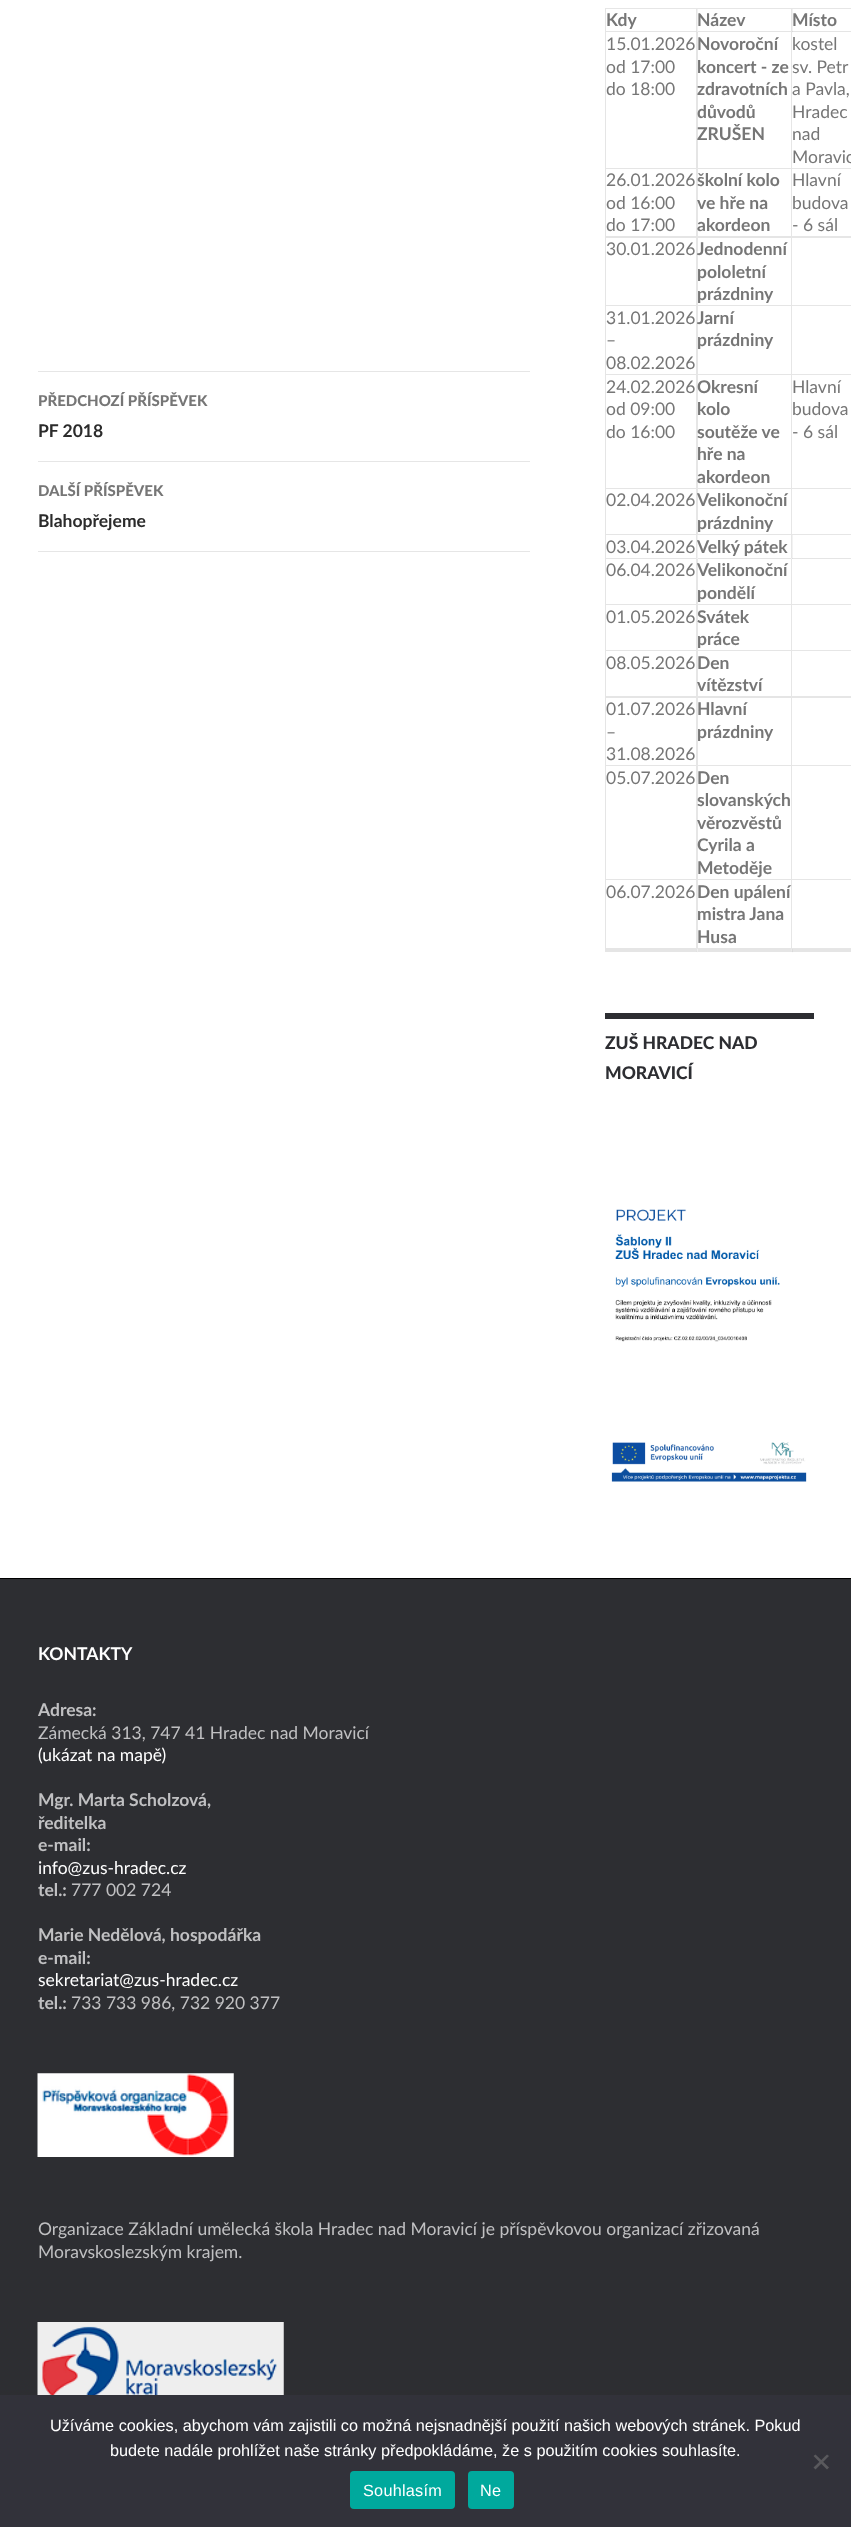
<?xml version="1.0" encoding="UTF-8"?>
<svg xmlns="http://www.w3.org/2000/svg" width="851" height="2527">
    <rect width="100%" height="100%" fill="#FFFFFF"/>
    <rect x="38" y="371" width="492" height="1" fill="#E6E6E6"/>
    <rect x="38" y="461" width="492" height="1" fill="#E6E6E6"/>
    <text x="38" y="406" font-family="Lato" font-size="15" font-weight="900" fill="#767676">PŘEDCHOZÍ PŘÍSPĚVEK</text>
    <text x="38" y="437" font-family="Lato" font-size="17.5" font-weight="700" fill="#2B2B2B">PF 2018</text>
    <rect x="38" y="551" width="492" height="1" fill="#E6E6E6"/>
    <text x="38" y="496" font-family="Lato" font-size="15" font-weight="900" fill="#767676">DALŠÍ PŘÍSPĚVEK</text>
    <text x="38" y="527" font-family="Lato" font-size="17.5" font-weight="700" fill="#2B2B2B">Blahopřejeme</text>
    <path d="M 605 8 H 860 V 9 H 606 Z" fill="#E6E6E6"/>
    <path d="M 605 952 V 8 L 606 9 V 952 Z" fill="#000000" fill-opacity="0.1"/>
    <path d="M 697.5 9 V 32.5 L 696 31 V 9 Z" fill="#E6E6E6"/>
    <path d="M 698 32 H 606 V 31 H 696 Z" fill="#000000" fill-opacity="0.1"/>
    <text x="606" y="26" font-family="Lato" font-size="17.5" font-weight="700" fill="#767676">Kdy</text>
    <path d="M 792.5 9 V 32.5 L 791 31 V 9 Z" fill="#E6E6E6"/>
    <path d="M 792 32 H 698 V 31 H 791 Z" fill="#000000" fill-opacity="0.1"/>
    <text x="697" y="26" font-family="Lato" font-size="17.5" font-weight="700" fill="#767676">Název</text>
    <path d="M 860 32 H 792 V 31 H 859 Z" fill="#000000" fill-opacity="0.1"/>
    <text x="792" y="26" font-family="Lato" font-size="17.5" font-weight="700" fill="#767676">Místo</text>
    <path d="M 698 32 V 169 L 696 168 V 32 Z" fill="#000000" fill-opacity="0.1"/>
    <path d="M 698 169 H 606 V 168 H 696 Z" fill="#000000" fill-opacity="0.1"/>
    <text font-family="Lato" font-size="17.5" fill="#767676">
        <tspan x="606" y="50">15.01.2026</tspan>
        <tspan x="606" y="73">od 17:00</tspan>
        <tspan x="606" y="95">do 18:00</tspan>
    </text>
    <path d="M 792 32 V 169 L 791 168 V 32 Z" fill="#E6E6E6"/>
    <path d="M 792 169 H 698 V 168 H 791 Z" fill="#000000" fill-opacity="0.1"/>
    <text font-family="Lato" font-size="17.5" font-weight="700" fill="#767676">
        <tspan x="697" y="50">Novoroční</tspan>
        <tspan x="697" y="73">koncert - ze</tspan>
        <tspan x="697" y="95">zdravotních</tspan>
        <tspan x="697" y="118">důvodů</tspan>
        <tspan x="697" y="140">ZRUŠEN</tspan>
    </text>
    <path d="M 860 169 H 792 V 168 H 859 Z" fill="#E6E6E6"/>
    <text font-family="Lato" font-size="17.5" fill="#767676">
        <tspan x="792" y="50">kostel</tspan>
        <tspan x="792" y="73">sv. Petr</tspan>
        <tspan x="792" y="95">a Pavla,</tspan>
        <tspan x="792" y="118">Hradec</tspan>
        <tspan x="792" y="140">nad</tspan>
        <tspan x="792" y="163">Moravic</tspan>
    </text>
    <path d="M 698 169 V 238 L 696 236 V 169 Z" fill="#E6E6E6"/>
    <path d="M 698 238 H 606 V 236 H 696 Z" fill="#000000" fill-opacity="0.1"/>
    <text font-family="Lato" font-size="17.5" fill="#767676">
        <tspan x="606" y="186">26.01.2026</tspan>
        <tspan x="606" y="209">od 16:00</tspan>
        <tspan x="606" y="231">do 17:00</tspan>
    </text>
    <path d="M 792 169 V 238 L 791 236 V 169 Z" fill="#E6E6E6"/>
    <path d="M 792 238 H 698 V 236 H 791 Z" fill="#000000" fill-opacity="0.1"/>
    <text font-family="Lato" font-size="17.5" font-weight="700" fill="#767676">
        <tspan x="697" y="186">školní kolo</tspan>
        <tspan x="697" y="209">ve hře na</tspan>
        <tspan x="697" y="231">akordeon</tspan>
    </text>
    <path d="M 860 238 H 792 V 236 H 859 Z" fill="#E6E6E6"/>
    <text font-family="Lato" font-size="17.5" fill="#767676">
        <tspan x="792" y="186">Hlavní</tspan>
        <tspan x="792" y="209">budova</tspan>
        <tspan x="792" y="231">- 6 sál</tspan>
    </text>
    <path d="M 698 238 V 306 L 696 305 V 238 Z" fill="#E6E6E6"/>
    <path d="M 698 306 H 606 V 305 H 696 Z" fill="#000000" fill-opacity="0.1"/>
    <text x="606" y="255" font-family="Lato" font-size="17.5" fill="#767676">30.01.2026</text>
    <path d="M 792 238 V 306 L 791 305 V 238 Z" fill="#E6E6E6"/>
    <path d="M 792 306 H 698 V 305 H 791 Z" fill="#000000" fill-opacity="0.1"/>
    <text font-family="Lato" font-size="17.5" font-weight="700" fill="#767676">
        <tspan x="697" y="255">Jednodenní</tspan>
        <tspan x="697" y="278">pololetní</tspan>
        <tspan x="697" y="300">prázdniny</tspan>
    </text>
    <path d="M 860 306 H 792 V 305 H 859 Z" fill="#E6E6E6"/>
    <path d="M 698 306 V 375 L 696 374 V 306 Z" fill="#E6E6E6"/>
    <path d="M 698 375 H 606 V 374 H 696 Z" fill="#000000" fill-opacity="0.1"/>
    <text font-family="Lato" font-size="17.5" fill="#767676">
        <tspan x="606" y="324">31.01.2026</tspan>
        <tspan x="606" y="346">–</tspan>
        <tspan x="606" y="369">08.02.2026</tspan>
    </text>
    <path d="M 792 306 V 375 L 791 374 V 306 Z" fill="#E6E6E6"/>
    <path d="M 792 375 H 698 V 374 H 791 Z" fill="#000000" fill-opacity="0.1"/>
    <text font-family="Lato" font-size="17.5" font-weight="700" fill="#767676">
        <tspan x="697" y="324">Jarní</tspan>
        <tspan x="697" y="346">prázdniny</tspan>
    </text>
    <path d="M 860 375 H 792 V 374 H 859 Z" fill="#E6E6E6"/>
    <path d="M 698 375 V 489 L 696 488 V 375 Z" fill="#E6E6E6"/>
    <path d="M 698 489 H 606 V 488 H 696 Z" fill="#000000" fill-opacity="0.1"/>
    <text font-family="Lato" font-size="17.5" fill="#767676">
        <tspan x="606" y="393">24.02.2026</tspan>
        <tspan x="606" y="415">od 09:00</tspan>
        <tspan x="606" y="438">do 16:00</tspan>
    </text>
    <path d="M 792 375 V 489 L 791 488 V 375 Z" fill="#E6E6E6"/>
    <path d="M 792 489 H 698 V 488 H 791 Z" fill="#000000" fill-opacity="0.1"/>
    <text font-family="Lato" font-size="17.5" font-weight="700" fill="#767676">
        <tspan x="697" y="393">Okresní</tspan>
        <tspan x="697" y="415">kolo</tspan>
        <tspan x="697" y="438">soutěže ve</tspan>
        <tspan x="697" y="460">hře na</tspan>
        <tspan x="697" y="483">akordeon</tspan>
    </text>
    <path d="M 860 489 H 792 V 488 H 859 Z" fill="#E6E6E6"/>
    <text font-family="Lato" font-size="17.5" fill="#767676">
        <tspan x="792" y="393">Hlavní</tspan>
        <tspan x="792" y="415">budova</tspan>
        <tspan x="792" y="438">- 6 sál</tspan>
    </text>
    <path d="M 698 489 V 535 L 696 534 V 489 Z" fill="#E6E6E6"/>
    <path d="M 698 535 H 606 V 534 H 696 Z" fill="#000000" fill-opacity="0.1"/>
    <text x="606" y="506" font-family="Lato" font-size="17.5" fill="#767676">02.04.2026</text>
    <path d="M 792 489 V 535 L 791 534 V 489 Z" fill="#E6E6E6"/>
    <path d="M 792 535 H 698 V 534 H 791 Z" fill="#000000" fill-opacity="0.1"/>
    <text font-family="Lato" font-size="17.5" font-weight="700" fill="#767676">
        <tspan x="697" y="506">Velikonoční</tspan>
        <tspan x="697" y="529">prázdniny</tspan>
    </text>
    <path d="M 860 535 H 792 V 534 H 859 Z" fill="#E6E6E6"/>
    <path d="M 697.5 535 V 559 L 696 557.5 V 535 Z" fill="#E6E6E6"/>
    <path d="M 698 559 H 606 V 558 H 696 Z" fill="#000000" fill-opacity="0.1"/>
    <text x="606" y="553" font-family="Lato" font-size="17.5" fill="#767676">03.04.2026</text>
    <path d="M 792.5 535 V 559 L 791 557.5 V 535 Z" fill="#E6E6E6"/>
    <path d="M 792 559 H 698 V 558 H 791 Z" fill="#000000" fill-opacity="0.1"/>
    <text x="697" y="553" font-family="Lato" font-size="17.5" font-weight="700" fill="#767676">Velký pátek</text>
    <path d="M 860 559 H 792 V 558 H 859 Z" fill="#000000" fill-opacity="0.1"/>
    <path d="M 698 559 V 605 L 696 604 V 559 Z" fill="#E6E6E6"/>
    <path d="M 698 605 H 606 V 604 H 696 Z" fill="#000000" fill-opacity="0.1"/>
    <text x="606" y="576" font-family="Lato" font-size="17.5" fill="#767676">06.04.2026</text>
    <path d="M 792 559 V 605 L 791 604 V 559 Z" fill="#E6E6E6"/>
    <path d="M 792 605 H 698 V 604 H 791 Z" fill="#000000" fill-opacity="0.1"/>
    <text font-family="Lato" font-size="17.5" font-weight="700" fill="#767676">
        <tspan x="697" y="576">Velikonoční</tspan>
        <tspan x="697" y="599">pondělí</tspan>
    </text>
    <path d="M 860 605 H 792 V 604 H 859 Z" fill="#E6E6E6"/>
    <path d="M 698 605 V 651 L 696 650 V 605 Z" fill="#E6E6E6"/>
    <path d="M 698 651 H 606 V 650 H 696 Z" fill="#000000" fill-opacity="0.1"/>
    <text x="606" y="623" font-family="Lato" font-size="17.5" fill="#767676">01.05.2026</text>
    <path d="M 792 605 V 651 L 791 650 V 605 Z" fill="#E6E6E6"/>
    <path d="M 792 651 H 698 V 650 H 791 Z" fill="#000000" fill-opacity="0.1"/>
    <text font-family="Lato" font-size="17.5" font-weight="700" fill="#767676">
        <tspan x="697" y="623">Svátek</tspan>
        <tspan x="697" y="645">práce</tspan>
    </text>
    <path d="M 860 651 H 792 V 650 H 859 Z" fill="#E6E6E6"/>
    <path d="M 698 651 V 698 L 696 696 V 651 Z" fill="#E6E6E6"/>
    <path d="M 698 698 H 606 V 696 H 696 Z" fill="#000000" fill-opacity="0.1"/>
    <text x="606" y="669" font-family="Lato" font-size="17.5" fill="#767676">08.05.2026</text>
    <path d="M 792 651 V 698 L 791 696 V 651 Z" fill="#E6E6E6"/>
    <path d="M 792 698 H 698 V 696 H 791 Z" fill="#000000" fill-opacity="0.1"/>
    <text font-family="Lato" font-size="17.5" font-weight="700" fill="#767676">
        <tspan x="697" y="669">Den</tspan>
        <tspan x="697" y="691">vítězství</tspan>
    </text>
    <path d="M 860 698 H 792 V 696 H 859 Z" fill="#E6E6E6"/>
    <path d="M 698 698 V 766 L 696 765 V 698 Z" fill="#E6E6E6"/>
    <path d="M 698 766 H 606 V 765 H 696 Z" fill="#000000" fill-opacity="0.1"/>
    <text font-family="Lato" font-size="17.5" fill="#767676">
        <tspan x="606" y="715">01.07.2026</tspan>
        <tspan x="606" y="738">–</tspan>
        <tspan x="606" y="760">31.08.2026</tspan>
    </text>
    <path d="M 792 698 V 766 L 791 765 V 698 Z" fill="#E6E6E6"/>
    <path d="M 792 766 H 698 V 765 H 791 Z" fill="#000000" fill-opacity="0.1"/>
    <text font-family="Lato" font-size="17.5" font-weight="700" fill="#767676">
        <tspan x="697" y="715">Hlavní</tspan>
        <tspan x="697" y="738">prázdniny</tspan>
    </text>
    <path d="M 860 766 H 792 V 765 H 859 Z" fill="#E6E6E6"/>
    <path d="M 698 766 V 880 L 696 879 V 766 Z" fill="#E6E6E6"/>
    <path d="M 698 880 H 606 V 879 H 696 Z" fill="#000000" fill-opacity="0.1"/>
    <text x="606" y="784" font-family="Lato" font-size="17.5" fill="#767676">05.07.2026</text>
    <path d="M 792 766 V 880 L 791 879 V 766 Z" fill="#E6E6E6"/>
    <path d="M 792 880 H 698 V 879 H 791 Z" fill="#000000" fill-opacity="0.1"/>
    <text font-family="Lato" font-size="17.5" font-weight="700" fill="#767676">
        <tspan x="697" y="784">Den</tspan>
        <tspan x="697" y="806">slovanských</tspan>
        <tspan x="697" y="829">věrozvěstů</tspan>
        <tspan x="697" y="851">Cyrila a</tspan>
        <tspan x="697" y="874">Metoděje</tspan>
    </text>
    <path d="M 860 880 H 792 V 879 H 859 Z" fill="#E6E6E6"/>
    <path d="M 698 880 V 949 L 696 948 V 880 Z" fill="#E6E6E6"/>
    <path d="M 698 949 H 606 V 948 H 696 Z" fill="#000000" fill-opacity="0.1"/>
    <text x="606" y="898" font-family="Lato" font-size="17.5" fill="#767676">06.07.2026</text>
    <path d="M 792 880 V 949 L 791 948 V 880 Z" fill="#E6E6E6"/>
    <path d="M 792 949 H 698 V 948 H 791 Z" fill="#000000" fill-opacity="0.1"/>
    <text font-family="Lato" font-size="17.5" font-weight="700" fill="#767676">
        <tspan x="697" y="898">Den upálení</tspan>
        <tspan x="697" y="920">mistra Jana</tspan>
        <tspan x="697" y="943">Husa</tspan>
    </text>
    <path d="M 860 949 H 792 V 948 H 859 Z" fill="#E6E6E6"/>
    <path d="M 697.5 949 V 950 L 696 949 Z" fill="#E6E6E6"/>
    <path d="M 698 950 H 606 V 949 H 696 Z" fill="#000000" fill-opacity="0.1"/>
    <path d="M 792.5 949 V 950 L 791 949 Z" fill="#E6E6E6"/>
    <path d="M 792 950 H 698 V 949 H 791 Z" fill="#000000" fill-opacity="0.1"/>
    <path d="M 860 950 H 792 V 949 H 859 Z" fill="#000000" fill-opacity="0.1"/>
    <path d="M 697.5 950 V 951 L 696 950 Z" fill="#E6E6E6"/>
    <path d="M 698 951 H 606 V 950 H 696 Z" fill="#000000" fill-opacity="0.1"/>
    <path d="M 792.5 950 V 951 L 791 950 Z" fill="#E6E6E6"/>
    <path d="M 792 951 H 698 V 950 H 791 Z" fill="#000000" fill-opacity="0.1"/>
    <path d="M 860 951 H 792 V 950 H 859 Z" fill="#000000" fill-opacity="0.1"/>
    <path d="M 697.5 951 V 952.5 L 696 951 Z" fill="#E6E6E6"/>
    <path d="M 698 952 H 606 V 951 H 696 Z" fill="#000000" fill-opacity="0.1"/>
    <path d="M 792.5 951 V 952.5 L 791 951 Z" fill="#E6E6E6"/>
    <path d="M 792 952 H 698 V 951 H 791 Z" fill="#000000" fill-opacity="0.1"/>
    <path d="M 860 952 H 792 V 951 H 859 Z" fill="#000000" fill-opacity="0.1"/>
    <rect x="605" y="1013" width="209" height="6" fill="#2D2E32"/>
    <text font-family="Lato" font-size="17.5" font-weight="900" fill="#2D2E32">
        <tspan x="605" y="1049">ZUŠ HRADEC NAD</tspan>
        <tspan x="605" y="1079">MORAVICÍ</tspan>
    </text>
    <image x="611" y="1209" width="196" height="273" href="img_01.png"/>
    <rect x="0" y="1579" width="851" height="816" fill="#2D2E32"/>
    <rect x="0" y="1578" width="851" height="1" fill="#000000"/>
    <text x="38" y="1660" font-family="Lato" font-size="17.5" font-weight="700" fill="#FFFFFF">KONTAKTY</text>
    <text x="38" y="1716" font-family="Lato" font-size="17.5" font-weight="700" fill="#C0C0C2">Adresa:</text>
    <text x="38" y="1739" font-family="Lato" font-size="17.5" fill="#C0C0C2">Zámecká 313, 747 41 Hradec nad Moravicí</text>
    <text x="38" y="1761" font-family="Lato" font-size="17.5" fill="#FFFFFF">(ukázat na mapě)</text>
    <text font-family="Lato" font-size="17.5" font-weight="700" fill="#C0C0C2">
        <tspan x="38" y="1806">Mgr. Marta Scholzová,</tspan>
        <tspan x="38" y="1829">ředitelka</tspan>
        <tspan x="38" y="1851">e-mail:</tspan>
    </text>
    <text x="38" y="1874" font-family="Lato" font-size="17.5" fill="#FFFFFF">info@zus-hradec.cz</text>
    <text x="38" y="1896" font-family="Lato" font-size="17.5" font-weight="700" fill="#C0C0C2">tel.:</text>
    <text x="71" y="1896" font-family="Lato" font-size="17.5" fill="#C0C0C2">777 002 724</text>
    <text font-family="Lato" font-size="17.5" font-weight="700" fill="#C0C0C2">
        <tspan x="38" y="1941">Marie Nedělová, hospodářka</tspan>
        <tspan x="38" y="1964">e-mail:</tspan>
    </text>
    <text x="38" y="1986" font-family="Lato" font-size="17.5" fill="#FFFFFF">sekretariat@zus-hradec.cz</text>
    <text x="38" y="2009" font-family="Lato" font-size="17.5" font-weight="700" fill="#C0C0C2">tel.:</text>
    <text x="71" y="2009" font-family="Lato" font-size="17.5" fill="#C0C0C2">733 733 986, 732 920 377</text>
    <image x="37" y="2073" width="197" height="84" href="img_02.png"/>
    <text font-family="Lato" font-size="17.5" fill="#C0C0C2">
        <tspan x="38" y="2235">Organizace Základní umělecká škola Hradec nad Moravicí je příspěvkovou organizací zřizovaná</tspan>
        <tspan x="38" y="2258">Moravskoslezským krajem.</tspan>
    </text>
    <image x="37" y="2322" width="247" height="73" href="img_03.png"/>
    <rect x="0" y="2395" width="851" height="132" fill="#32323A"/>
    <text x="50" y="2431" font-family="Liberation Sans" font-size="16.25" fill="#FFFFFF">Užíváme cookies, abychom vám zajistili co možná nejsnadnější použití našich webových stránek. Pokud</text>
    <text x="110" y="2456" font-family="Liberation Sans" font-size="16.25" fill="#FFFFFF">budete nadále prohlížet naše stránky předpokládáme, že s použitím cookies souhlasíte.</text>
    <path d="M 827 2454.5 L 829 2456 L 815.5 2469.5 L 813.5 2467.5 Z" fill="#59595D"/>
    <path d="M 813.5 2456 L 815.5 2454.5 L 829 2467.5 L 827 2469.5 Z" fill="#59595D"/>
    <rect x="350" y="2471" width="105" height="38" rx="4" fill="#00A99D"/>
    <text x="363" y="2496" font-family="Liberation Sans" font-size="16.25" letter-spacing="0.25" fill="#FFFFFF">Souhlasím</text>
    <rect x="468" y="2471" width="46" height="38" rx="4" fill="#00A99D"/>
    <text x="480" y="2496" font-family="Liberation Sans" font-size="16.25" letter-spacing="0.25" fill="#FFFFFF">Ne</text>
</svg>
